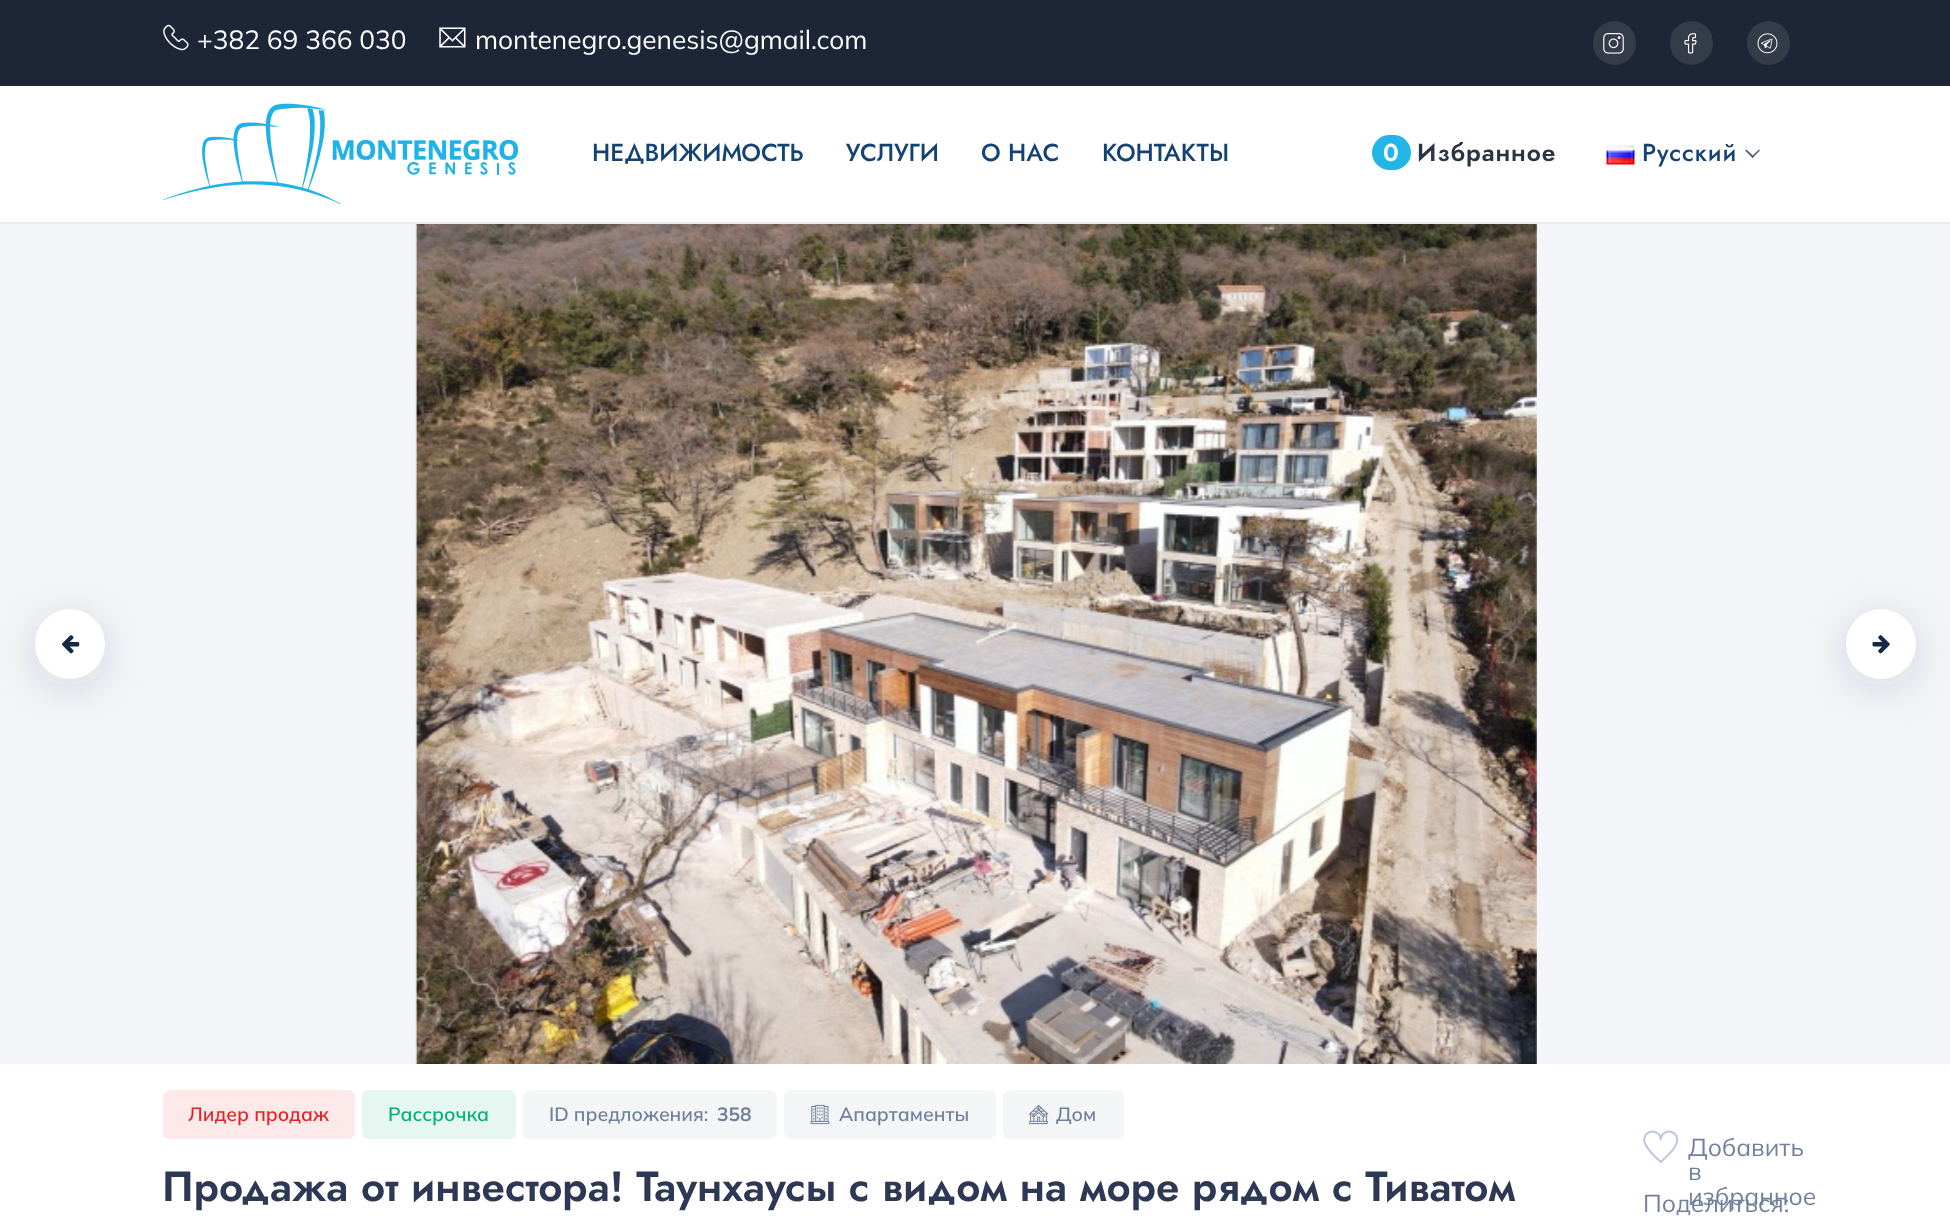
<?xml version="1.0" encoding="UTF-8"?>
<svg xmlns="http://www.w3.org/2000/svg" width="1950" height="1218">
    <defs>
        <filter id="blur1" x="-50%" y="-200%" width="200%" height="500%"><feGaussianBlur stdDeviation="21"/></filter>
    </defs>
    <rect width="100%" height="100%" fill="#FFFFFF"/>
    <rect x="0" y="0" width="1950" height="86" fill="#1D2636"/>
    <image x="163" y="24" width="26" height="27" href="img_01.png"/>
    <text x="197" y="49" font-family="Mulish" font-size="26.25" fill="#FFFFFF">+382 69 366 030</text>
    <image x="439" y="27" width="27" height="21" href="img_02.png"/>
    <text x="475" y="49" font-family="Mulish" font-size="26.25" fill="#FFFFFF">montenegro.genesis@gmail.com</text>
    <rect x="1593" y="21" width="43" height="44" rx="21.5" fill="#343C4A"/>
    <image x="1603" y="33" width="21" height="21" href="img_03.png"/>
    <rect x="1670" y="21" width="43" height="44" rx="21.5" fill="#343C4A"/>
    <image x="1684" y="33" width="13" height="21" href="img_04.png"/>
    <rect x="1747" y="21" width="43" height="44" rx="21.5" fill="#343C4A"/>
    <image x="1757" y="33" width="21" height="21" href="img_05.png"/>
    <rect x="0" y="222" width="1950" height="2" fill="#E9ECEF"/>
    <image x="163" y="103" width="355" height="102" href="img_06.png"/>
    <text x="592" y="161" font-family="Jost" font-size="24.5" font-weight="500" fill="#144273">НЕДВИЖИМОСТЬ</text>
    <text x="846" y="161" font-family="Jost" font-size="24.5" font-weight="500" fill="#144273">УСЛУГИ</text>
    <text x="981" y="161" font-family="Jost" font-size="24.5" font-weight="500" fill="#144273">О НАС</text>
    <text x="1102" y="161" font-family="Jost" font-size="24.5" font-weight="500" fill="#144273">КОНТАКТЫ</text>
    <rect x="1372" y="135" width="39" height="35" rx="17.5" fill="#21B6E5"/>
    <text x="1383" y="161" font-family="Jost" font-size="24.5" font-weight="600" letter-spacing="0.9" fill="#FFFFFF">0</text>
    <text x="1417" y="161" font-family="Jost" font-size="24.5" font-weight="600" letter-spacing="0.9" fill="#293544">Избранное</text>
    <image x="1606" y="145" width="29" height="20" href="img_07.png"/>
    <text x="1642" y="161" font-family="Jost" font-size="24.5" font-weight="500" letter-spacing="0.9" fill="#144273">Русский</text>
    <path d="M 1759 149.5 L 1760 150.5 L 1752.5 158 L 1751.5 156.5 Z" fill="#506377"/>
    <path d="M 1746.5 149.5 L 1754 156.5 L 1752.5 158 L 1745 150.5 Z" fill="#506377"/>
    <rect x="0" y="224" width="1950" height="840" fill="#F3F5F8"/>
    <rect x="35" y="618" width="70" height="70" rx="35" fill="#1F253B" fill-opacity="0.15" filter="url(#blur1)"/>
    <circle cx="70" cy="644" r="35" fill="#FFFFFF"/>
    <image x="62" y="635" width="18" height="19" href="img_08.png"/>
    <image x="415" y="224" width="1122" height="840" href="img_09.png"/>
    <rect x="1846" y="618" width="70" height="70" rx="35" fill="#1F253B" fill-opacity="0.15" filter="url(#blur1)"/>
    <circle cx="1881" cy="644" r="35" fill="#FFFFFF"/>
    <image x="1872" y="635" width="18" height="19" href="img_10.png"/>
    <rect x="163" y="1090" width="192" height="49" rx="7" fill="#FDE9E9"/>
    <text x="188" y="1121" font-family="Mulish" font-size="19.25" font-weight="600" fill="#E62222">Лидер продаж</text>
    <rect x="362" y="1090" width="154" height="49" rx="7" fill="#E6F7F2"/>
    <text x="388" y="1121" font-family="Mulish" font-size="19.25" font-weight="600" fill="#05AF78">Рассрочка</text>
    <rect x="523" y="1090" width="254" height="49" rx="7" fill="#F4F5F7"/>
    <text x="549" y="1121" font-family="Mulish" font-size="19.25" font-weight="600" fill="#72809D">ID предложения:</text>
    <text x="717" y="1121" font-family="Mulish" font-size="19.25" font-weight="700" fill="#72809D">358</text>
    <rect x="784" y="1090" width="212" height="49" rx="7" fill="#F4F5F7"/>
    <image x="810" y="1104" width="20" height="21" href="img_11.png"/>
    <text x="839" y="1121" font-family="Mulish" font-size="19.25" font-weight="600" fill="#72809D">Апартаменты</text>
    <rect x="1003" y="1090" width="121" height="49" rx="7" fill="#F4F5F7"/>
    <image x="1029" y="1105" width="20" height="20" href="img_12.png"/>
    <text x="1056" y="1121" font-family="Mulish" font-size="19.25" font-weight="600" fill="#72809D">Дом</text>
    <text x="162" y="1201" font-family="Jost" font-size="42" font-weight="600" fill="#2D3954">Продажа от инвестора! Таунхаусы с видом на море рядом с Тиватом</text>
    <image x="1643" y="1130" width="36" height="33" href="img_13.png"/>
    <text font-family="Mulish" font-size="24.5" fill="#72809D">
        <tspan x="1688" y="1156">Добавить</tspan>
        <tspan x="1688" y="1180">в</tspan>
        <tspan x="1688" y="1205">избранное</tspan>
    </text>
    <text x="1643" y="1212" font-family="Mulish" font-size="24.5" fill="#72809D">Поделиться:</text>
</svg>
